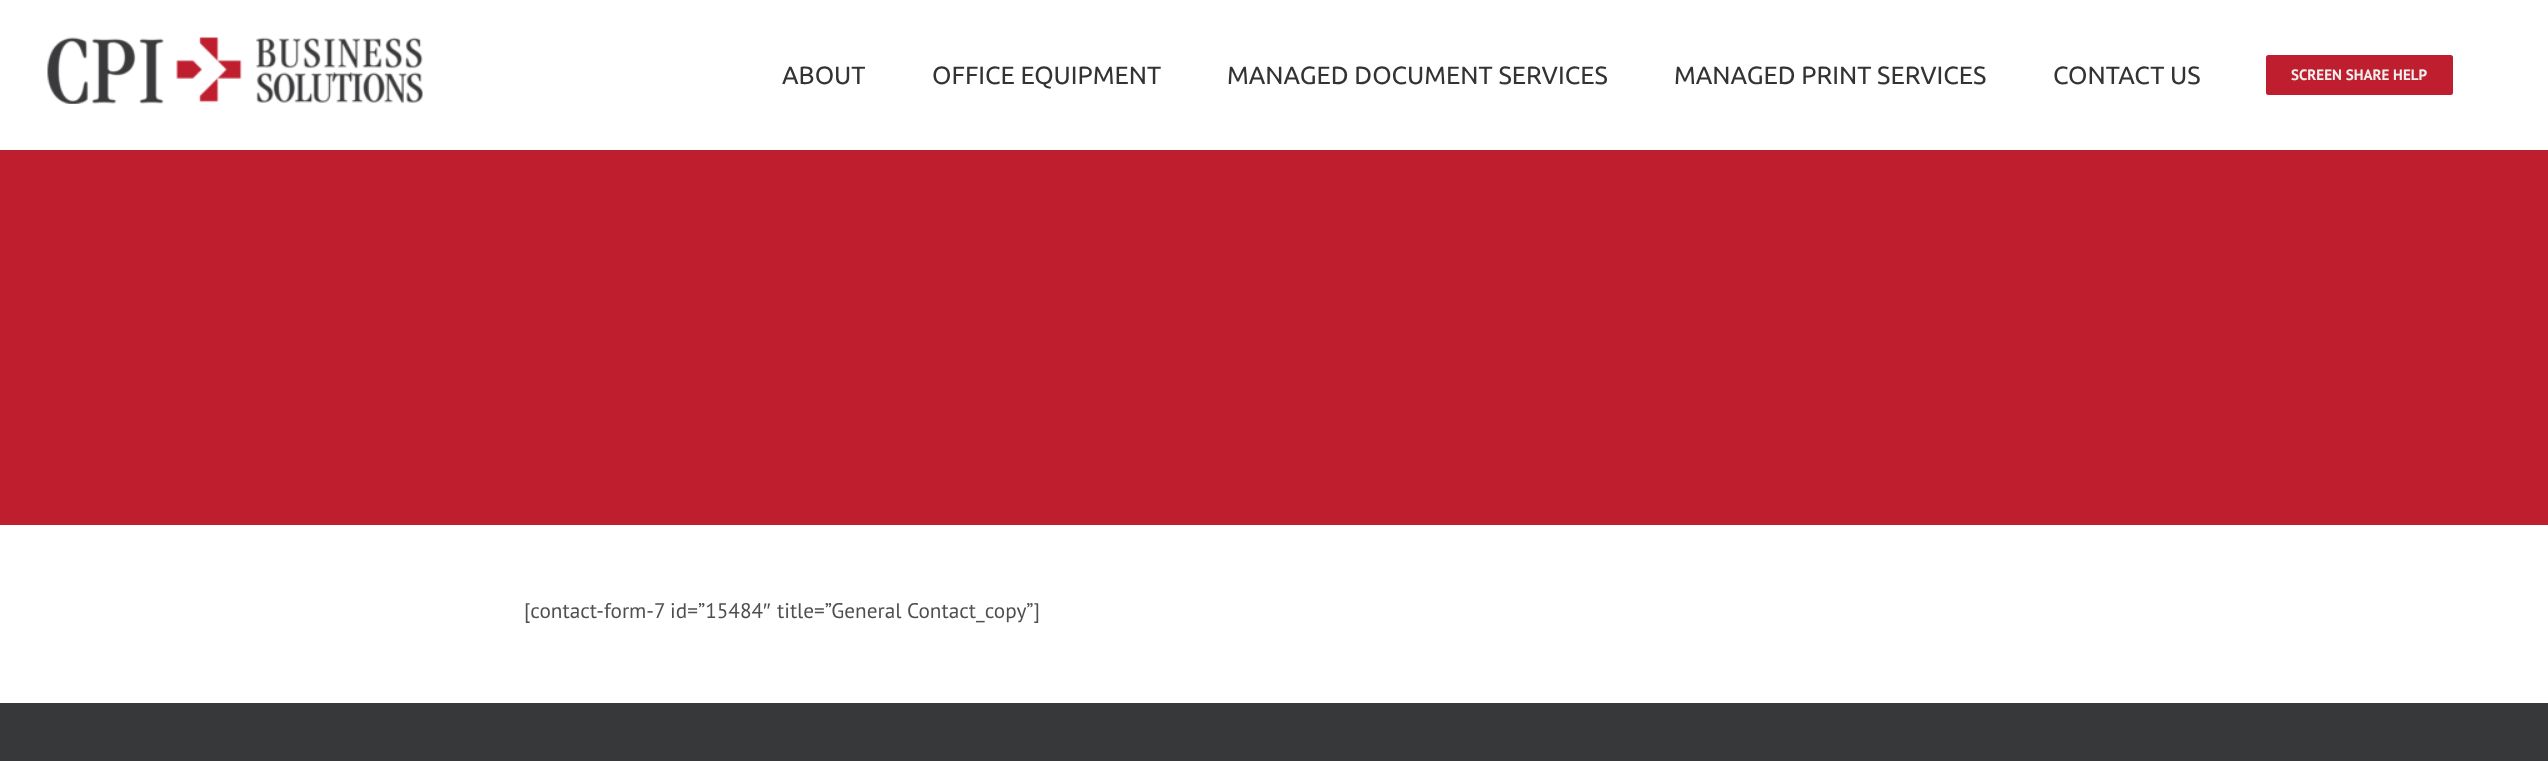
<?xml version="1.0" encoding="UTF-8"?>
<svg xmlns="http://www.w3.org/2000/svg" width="2548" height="761">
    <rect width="100%" height="100%" fill="#FFFFFF"/>
    <image x="47" y="37" width="376" height="67" href="img_01.png"/>
    <text x="782" y="84" font-family="Ubuntu" font-size="25" fill="#333333">ABOUT</text>
    <text x="932" y="84" font-family="Ubuntu" font-size="25" fill="#333333">OFFICE EQUIPMENT</text>
    <text x="1227" y="84" font-family="Ubuntu" font-size="25" fill="#333333">MANAGED DOCUMENT SERVICES</text>
    <text x="1674" y="84" font-family="Ubuntu" font-size="25" fill="#333333">MANAGED PRINT SERVICES</text>
    <text x="2053" y="84" font-family="Ubuntu" font-size="25" fill="#333333">CONTACT US</text>
    <rect x="2266" y="55" width="187" height="40" rx="2.5" fill="#BF1E2E"/>
    <text x="2291" y="80" font-family="PT Sans" font-size="15" font-weight="700" fill="#EFEFEF">SCREEN SHARE HELP</text>
    <rect x="0" y="150" width="2548" height="375" fill="#BF1E2E"/>
    <text x="524" y="618" font-family="PT Sans" font-size="21.25" fill="#4F4F4F">[contact-form-7 id=”15484</text>
    <text x="763" y="618" font-family="Liberation Sans" font-size="21.25" fill="#4F4F4F">″</text>
    <text x="777" y="618" font-family="PT Sans" font-size="21.25" fill="#4F4F4F">title=”General Contact_copy”]</text>
    <rect x="0" y="703" width="2548" height="58" fill="#363839"/>
</svg>
